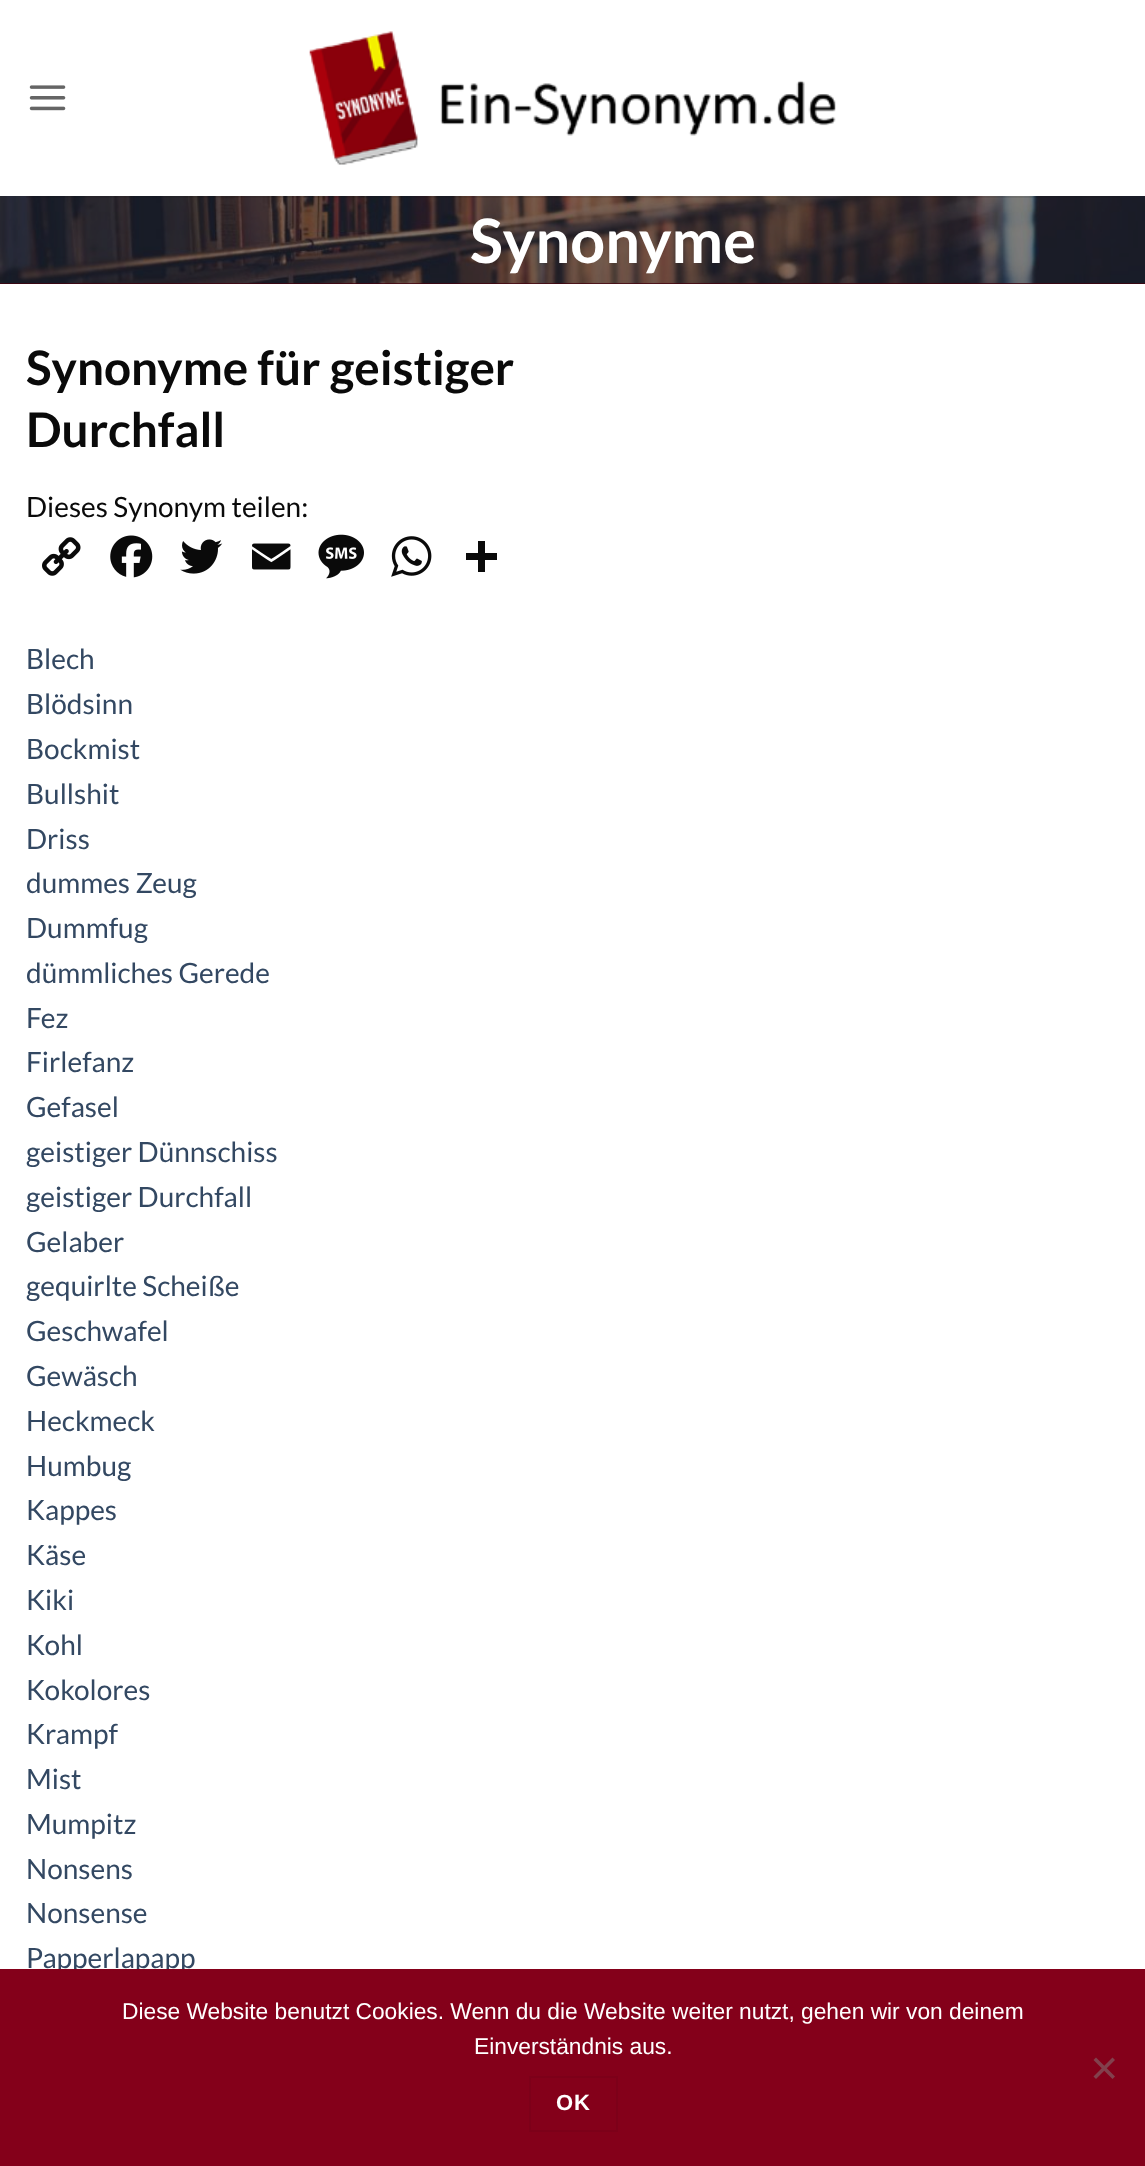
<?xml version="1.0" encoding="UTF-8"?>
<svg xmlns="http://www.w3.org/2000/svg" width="1145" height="2166">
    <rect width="100%" height="100%" fill="#FFFFFF"/>
    <image x="29" y="85" width="37" height="26" href="img_01.png"/>
    <image x="309" y="31" width="527" height="134" href="img_02.png"/>
    <rect x="0" y="283" width="1145" height="1" fill="#42000D"/>
    <image x="0" y="196" width="1145" height="88" href="img_03.png"/>
    <rect x="26" y="196" width="1094" height="2" fill="#0A0A0A" fill-opacity="0.1"/>
    <text x="470" y="263" font-family="Lato" font-size="61.25" font-weight="700" fill="#FFFFFF">Synonyme</text>
    <text font-family="Lato" font-size="47.6" font-weight="700" fill="#0A0A0A">
        <tspan x="26" y="385">Synonyme für geistiger</tspan>
        <tspan x="26" y="447">Durchfall</tspan>
    </text>
    <text x="26" y="517" font-family="Lato" font-size="28" fill="#0A0A0A">Dieses Synonym teilen:</text>
    <image x="42" y="537" width="39" height="39" href="img_04.png"/>
    <image x="110" y="535" width="43" height="43" href="img_05.png"/>
    <image x="180" y="539" width="43" height="35" href="img_06.png"/>
    <image x="252" y="543" width="39" height="27" href="img_07.png"/>
    <image x="318" y="534" width="46" height="45" href="img_08.png"/>
    <image x="391" y="536" width="41" height="41" href="img_09.png"/>
    <rect x="478" y="541" width="7" height="31" fill="#0A0A0A"/>
    <rect x="466" y="553" width="31" height="7" fill="#0A0A0A"/>
    <text font-family="Lato" font-size="28" fill="#334862">
        <tspan x="26" y="669">Blech</tspan>
        <tspan x="26" y="714">Blödsinn</tspan>
        <tspan x="26" y="759">Bockmist</tspan>
        <tspan x="26" y="804">Bullshit</tspan>
        <tspan x="26" y="849">Driss</tspan>
        <tspan x="26" y="893">dummes Zeug</tspan>
        <tspan x="26" y="938">Dummfug</tspan>
        <tspan x="26" y="983">dümmliches Gerede</tspan>
        <tspan x="26" y="1028">Fez</tspan>
        <tspan x="26" y="1072">Firlefanz</tspan>
        <tspan x="26" y="1117">Gefasel</tspan>
        <tspan x="26" y="1162">geistiger Dünnschiss</tspan>
        <tspan x="26" y="1207">geistiger Durchfall</tspan>
        <tspan x="26" y="1252">Gelaber</tspan>
        <tspan x="26" y="1296">gequirlte Scheiße</tspan>
        <tspan x="26" y="1341">Geschwafel</tspan>
        <tspan x="26" y="1386">Gewäsch</tspan>
        <tspan x="26" y="1431">Heckmeck</tspan>
        <tspan x="26" y="1476">Humbug</tspan>
        <tspan x="26" y="1520">Kappes</tspan>
        <tspan x="26" y="1565">Käse</tspan>
        <tspan x="26" y="1610">Kiki</tspan>
        <tspan x="26" y="1655">Kohl</tspan>
        <tspan x="26" y="1700">Kokolores</tspan>
        <tspan x="26" y="1744">Krampf</tspan>
        <tspan x="26" y="1789">Mist</tspan>
        <tspan x="26" y="1834">Mumpitz</tspan>
        <tspan x="26" y="1879">Nonsens</tspan>
        <tspan x="26" y="1923">Nonsense</tspan>
        <tspan x="26" y="1968">Papperlapapp</tspan>
    </text>
    <rect x="0" y="1969" width="1145" height="197" fill="#84001A"/>
    <text x="122" y="2019" font-family="Liberation Sans" font-size="22.75" fill="#FFFFFF">Diese Website benutzt Cookies. Wenn du die Website weiter nutzt, gehen wir von deinem</text>
    <text x="474" y="2054" font-family="Liberation Sans" font-size="22.75" fill="#FFFFFF">Einverständnis aus.</text>
    <path d="M 1112.5 2057.5 L 1115 2060 L 1096 2079 L 1093.5 2076.5 Z" fill="#82404D"/>
    <path d="M 1093.5 2060 L 1096 2057.5 L 1115 2076.5 L 1112.5 2079 Z" fill="#82404D"/>
    <rect x="530" y="2077" width="87" height="54" fill="none" stroke="#7D0019" stroke-width="2"/>
    <text x="556" y="2110" font-family="Liberation Sans" font-size="22" font-weight="700" letter-spacing="1" fill="#FFFFFF">OK</text>
</svg>
